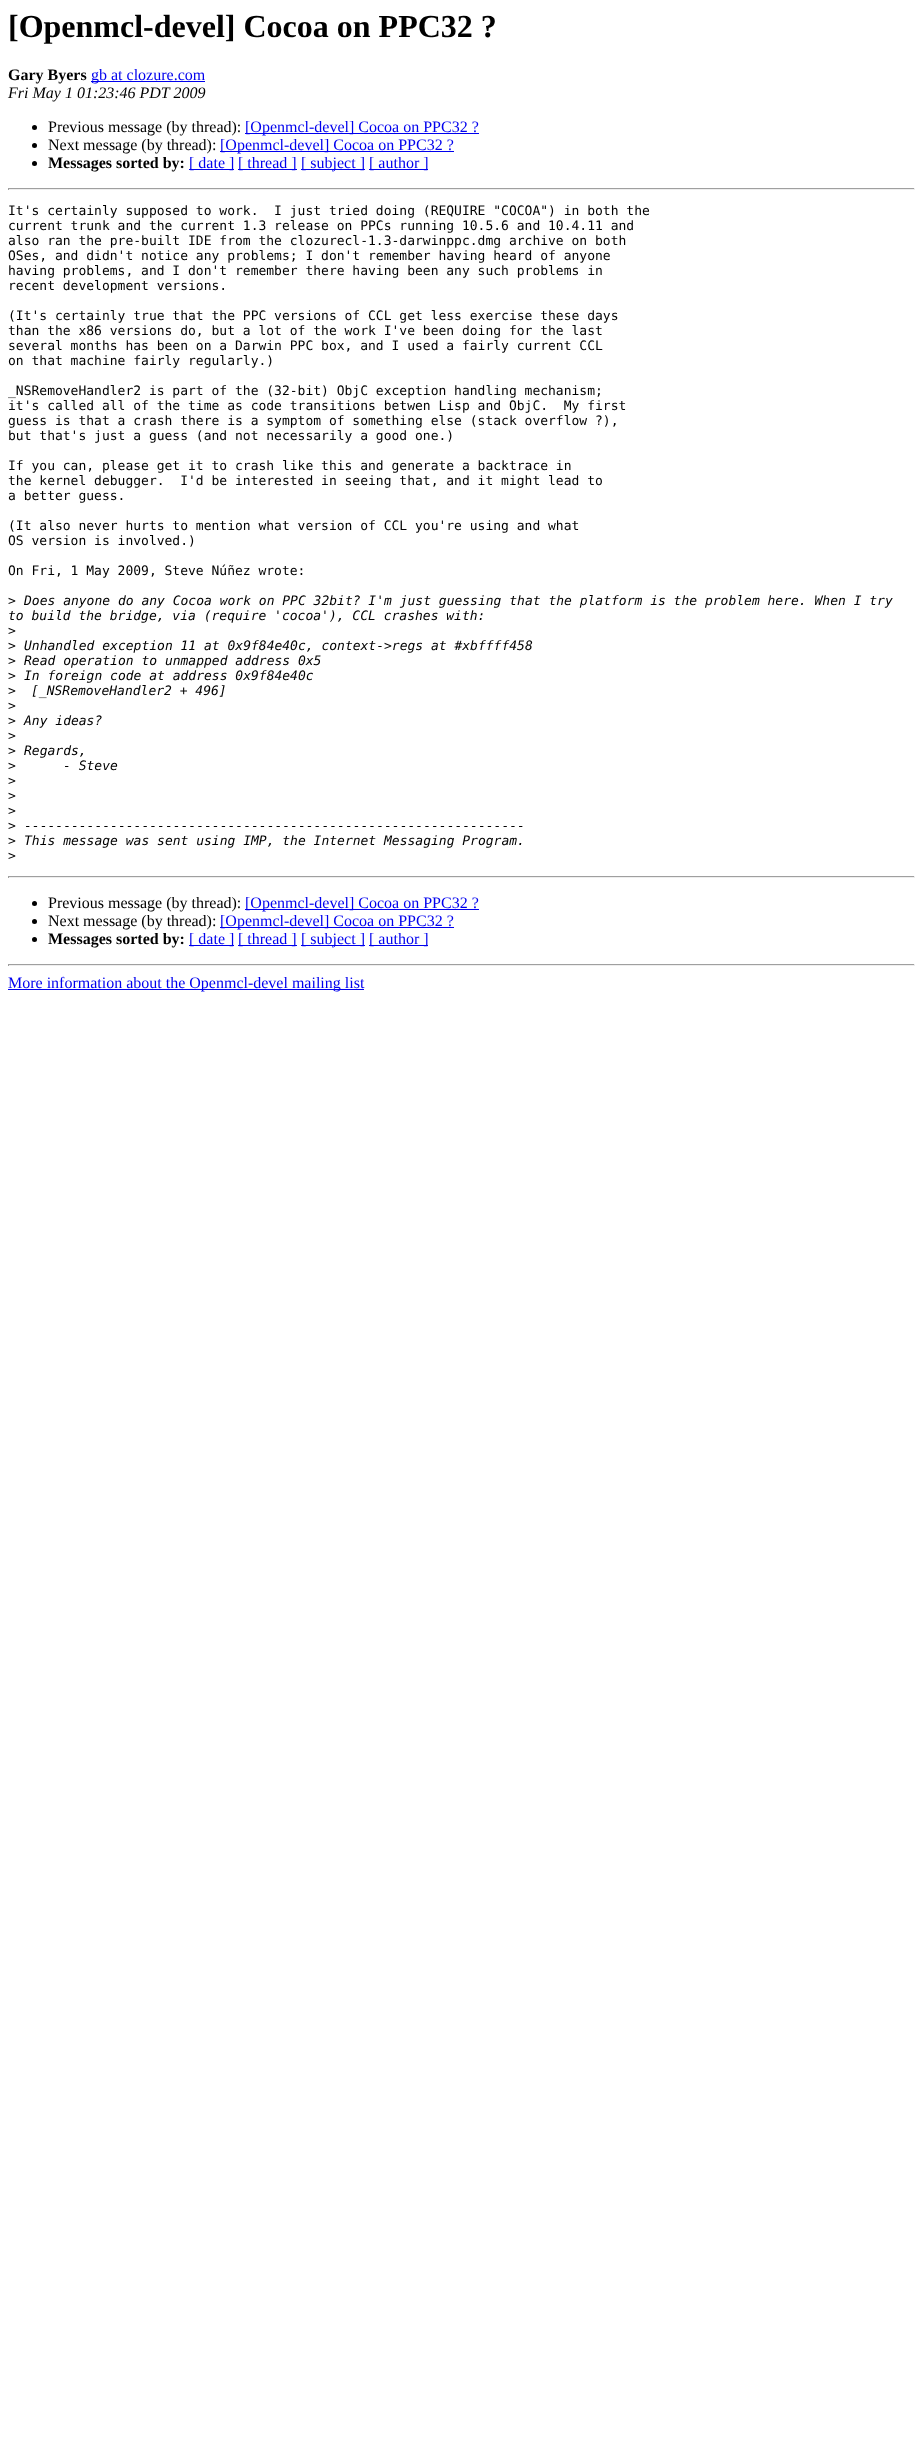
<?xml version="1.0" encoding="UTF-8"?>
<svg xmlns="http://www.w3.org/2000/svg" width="923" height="2462">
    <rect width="100%" height="100%" fill="#FFFFFF"/>
    <text x="8" y="37" font-family="Liberation Serif" font-size="32" font-weight="700" fill="#000000">[Openmcl-devel] Cocoa on PPC32 ?</text>
    <text x="8" y="80" font-family="Liberation Serif" font-size="16" font-weight="700" fill="#000000">Gary Byers</text>
    <rect x="91" y="81" width="114" height="1" fill="#0000EE"/>
    <text x="91" y="80" font-family="Liberation Serif" font-size="16" fill="#0000EE">gb at clozure.com</text>
    <text x="8" y="98" font-family="Liberation Serif" font-size="16" font-style="italic" fill="#000000">Fri May 1 01:23:46 PDT 2009</text>
    <circle cx="34.5" cy="127.5" r="2.5" fill="#000000"/>
    <text x="48" y="132" font-family="Liberation Serif" font-size="16" fill="#000000">Previous message (by thread):</text>
    <rect x="245" y="133" width="234" height="1" fill="#0000EE"/>
    <text x="245" y="132" font-family="Liberation Serif" font-size="16" fill="#0000EE">[Openmcl-devel] Cocoa on PPC32 ?</text>
    <circle cx="34.5" cy="145.5" r="2.5" fill="#000000"/>
    <text x="48" y="150" font-family="Liberation Serif" font-size="16" fill="#000000">Next message (by thread):</text>
    <rect x="220" y="151" width="234" height="1" fill="#0000EE"/>
    <text x="220" y="150" font-family="Liberation Serif" font-size="16" fill="#0000EE">[Openmcl-devel] Cocoa on PPC32 ?</text>
    <circle cx="34.5" cy="163.5" r="2.5" fill="#000000"/>
    <text x="48" y="168" font-family="Liberation Serif" font-size="16" font-weight="700" fill="#000000">Messages sorted by:</text>
    <rect x="189" y="169" width="45" height="1" fill="#0000EE"/>
    <text x="189" y="168" font-family="Liberation Serif" font-size="16" fill="#0000EE">[ date ]</text>
    <rect x="238" y="169" width="59" height="1" fill="#0000EE"/>
    <text x="238" y="168" font-family="Liberation Serif" font-size="16" fill="#0000EE">[ thread ]</text>
    <rect x="301" y="169" width="64" height="1" fill="#0000EE"/>
    <text x="301" y="168" font-family="Liberation Serif" font-size="16" fill="#0000EE">[ subject ]</text>
    <rect x="369" y="169" width="59" height="1" fill="#0000EE"/>
    <text x="369" y="168" font-family="Liberation Serif" font-size="16" fill="#0000EE">[ author ]</text>
    <rect x="8" y="188" width="907" height="1" fill="#9F9F9F"/>
    <rect x="914" y="188" width="1" height="2" fill="#EEEEEE"/>
    <rect x="8" y="189" width="907" height="1" fill="#EEEEEE"/>
    <rect x="8" y="188" width="1" height="2" fill="#9F9F9F"/>
    <text font-family="DejaVu Sans Mono" font-size="13" fill="#000000" xml:space="preserve"><tspan x="8" y="215">It's certainly supposed to work.  I just tried doing (REQUIRE "COCOA") in both the</tspan><tspan x="8" y="230">current trunk and the current 1.3 release on PPCs running 10.5.6 and 10.4.11 and</tspan><tspan x="8" y="245">also ran the pre-built IDE from the clozurecl-1.3-darwinppc.dmg archive on both</tspan><tspan x="8" y="260">OSes, and didn't notice any problems; I don't remember having heard of anyone</tspan><tspan x="8" y="275">having problems, and I don't remember there having been any such problems in</tspan><tspan x="8" y="290">recent development versions.</tspan></text>
    <text font-family="DejaVu Sans Mono" font-size="13" fill="#000000">
        <tspan x="8" y="320">(It's certainly true that the PPC versions of CCL get less exercise these days</tspan>
        <tspan x="8" y="335">than the x86 versions do, but a lot of the work I've been doing for the last</tspan>
        <tspan x="8" y="350">several months has been on a Darwin PPC box, and I used a fairly current CCL</tspan>
        <tspan x="8" y="365">on that machine fairly regularly.)</tspan>
    </text>
    <text font-family="DejaVu Sans Mono" font-size="13" fill="#000000" xml:space="preserve"><tspan x="8" y="395">_NSRemoveHandler2 is part of the (32-bit) ObjC exception handling mechanism;</tspan><tspan x="8" y="410">it's called all of the time as code transitions betwen Lisp and ObjC.  My first</tspan><tspan x="8" y="425">guess is that a crash there is a symptom of something else (stack overflow ?),</tspan><tspan x="8" y="440">but that's just a guess (and not necessarily a good one.)</tspan></text>
    <text font-family="DejaVu Sans Mono" font-size="13" fill="#000000" xml:space="preserve"><tspan x="8" y="470">If you can, please get it to crash like this and generate a backtrace in</tspan><tspan x="8" y="485">the kernel debugger.  I'd be interested in seeing that, and it might lead to</tspan><tspan x="8" y="500">a better guess.</tspan></text>
    <text font-family="DejaVu Sans Mono" font-size="13" fill="#000000">
        <tspan x="8" y="530">(It also never hurts to mention what version of CCL you're using and what</tspan>
        <tspan x="8" y="545">OS version is involved.)</tspan>
    </text>
    <text x="8" y="575" font-family="DejaVu Sans Mono" font-size="13" fill="#000000">On Fri, 1 May 2009, Steve Núñez wrote:</text>
    <text x="8" y="605" font-family="DejaVu Sans Mono" font-size="13" fill="#000000">&gt;</text>
    <text x="24" y="605" font-family="DejaVu Sans Mono" font-size="13" font-style="italic" fill="#000000">Does anyone do any Cocoa work on PPC 32bit? I'm just guessing that the platform is the problem here. When I try</text>
    <text x="8" y="620" font-family="DejaVu Sans Mono" font-size="13" font-style="italic" fill="#000000">to build the bridge, via (require 'cocoa'), CCL crashes with:</text>
    <text font-family="DejaVu Sans Mono" font-size="13" fill="#000000">
        <tspan x="8" y="635">&gt;</tspan>
        <tspan x="8" y="650">&gt;</tspan>
    </text>
    <text x="24" y="650" font-family="DejaVu Sans Mono" font-size="13" font-style="italic" fill="#000000">Unhandled exception 11 at 0x9f84e40c, context-&gt;regs at #xbffff458</text>
    <text x="8" y="665" font-family="DejaVu Sans Mono" font-size="13" fill="#000000">&gt;</text>
    <text x="24" y="665" font-family="DejaVu Sans Mono" font-size="13" font-style="italic" fill="#000000">Read operation to unmapped address 0x5</text>
    <text x="8" y="680" font-family="DejaVu Sans Mono" font-size="13" fill="#000000">&gt;</text>
    <text x="24" y="680" font-family="DejaVu Sans Mono" font-size="13" font-style="italic" fill="#000000">In foreign code at address 0x9f84e40c</text>
    <text x="8" y="695" font-family="DejaVu Sans Mono" font-size="13" fill="#000000">&gt;</text>
    <text x="31" y="695" font-family="DejaVu Sans Mono" font-size="13" font-style="italic" fill="#000000">[_NSRemoveHandler2 + 496]</text>
    <text font-family="DejaVu Sans Mono" font-size="13" fill="#000000">
        <tspan x="8" y="710">&gt;</tspan>
        <tspan x="8" y="725">&gt;</tspan>
    </text>
    <text x="24" y="725" font-family="DejaVu Sans Mono" font-size="13" font-style="italic" fill="#000000">Any ideas?</text>
    <text font-family="DejaVu Sans Mono" font-size="13" fill="#000000">
        <tspan x="8" y="740">&gt;</tspan>
        <tspan x="8" y="755">&gt;</tspan>
    </text>
    <text x="24" y="755" font-family="DejaVu Sans Mono" font-size="13" font-style="italic" fill="#000000">Regards,</text>
    <text x="8" y="770" font-family="DejaVu Sans Mono" font-size="13" fill="#000000">&gt;</text>
    <text x="63" y="770" font-family="DejaVu Sans Mono" font-size="13" font-style="italic" fill="#000000">- Steve</text>
    <text font-family="DejaVu Sans Mono" font-size="13" fill="#000000">
        <tspan x="8" y="785">&gt;</tspan>
        <tspan x="8" y="800">&gt;</tspan>
        <tspan x="8" y="815">&gt;</tspan>
        <tspan x="8" y="830">&gt;</tspan>
    </text>
    <text x="24" y="830" font-family="DejaVu Sans Mono" font-size="13" font-style="italic" fill="#000000">----------------------------------------------------------------</text>
    <text x="8" y="845" font-family="DejaVu Sans Mono" font-size="13" fill="#000000">&gt;</text>
    <text x="24" y="845" font-family="DejaVu Sans Mono" font-size="13" font-style="italic" fill="#000000">This message was sent using IMP, the Internet Messaging Program.</text>
    <text x="8" y="860" font-family="DejaVu Sans Mono" font-size="13" fill="#000000">&gt;</text>
    <rect x="8" y="876" width="907" height="1" fill="#9F9F9F"/>
    <rect x="914" y="876" width="1" height="2" fill="#EEEEEE"/>
    <rect x="8" y="877" width="907" height="1" fill="#EEEEEE"/>
    <rect x="8" y="876" width="1" height="2" fill="#9F9F9F"/>
    <circle cx="34.5" cy="903.5" r="2.5" fill="#000000"/>
    <text x="48" y="908" font-family="Liberation Serif" font-size="16" fill="#000000">Previous message (by thread):</text>
    <rect x="245" y="909" width="234" height="1" fill="#0000EE"/>
    <text x="245" y="908" font-family="Liberation Serif" font-size="16" fill="#0000EE">[Openmcl-devel] Cocoa on PPC32 ?</text>
    <circle cx="34.5" cy="921.5" r="2.5" fill="#000000"/>
    <text x="48" y="926" font-family="Liberation Serif" font-size="16" fill="#000000">Next message (by thread):</text>
    <rect x="220" y="927" width="234" height="1" fill="#0000EE"/>
    <text x="220" y="926" font-family="Liberation Serif" font-size="16" fill="#0000EE">[Openmcl-devel] Cocoa on PPC32 ?</text>
    <circle cx="34.5" cy="939.5" r="2.5" fill="#000000"/>
    <text x="48" y="944" font-family="Liberation Serif" font-size="16" font-weight="700" fill="#000000">Messages sorted by:</text>
    <rect x="189" y="945" width="45" height="1" fill="#0000EE"/>
    <text x="189" y="944" font-family="Liberation Serif" font-size="16" fill="#0000EE">[ date ]</text>
    <rect x="238" y="945" width="59" height="1" fill="#0000EE"/>
    <text x="238" y="944" font-family="Liberation Serif" font-size="16" fill="#0000EE">[ thread ]</text>
    <rect x="301" y="945" width="64" height="1" fill="#0000EE"/>
    <text x="301" y="944" font-family="Liberation Serif" font-size="16" fill="#0000EE">[ subject ]</text>
    <rect x="369" y="945" width="59" height="1" fill="#0000EE"/>
    <text x="369" y="944" font-family="Liberation Serif" font-size="16" fill="#0000EE">[ author ]</text>
    <rect x="8" y="964" width="907" height="1" fill="#9F9F9F"/>
    <rect x="914" y="964" width="1" height="2" fill="#EEEEEE"/>
    <rect x="8" y="965" width="907" height="1" fill="#EEEEEE"/>
    <rect x="8" y="964" width="1" height="2" fill="#9F9F9F"/>
    <rect x="8" y="989" width="356" height="1" fill="#0000EE"/>
    <text x="8" y="988" font-family="Liberation Serif" font-size="16" fill="#0000EE">More information about the Openmcl-devel mailing list</text>
</svg>
